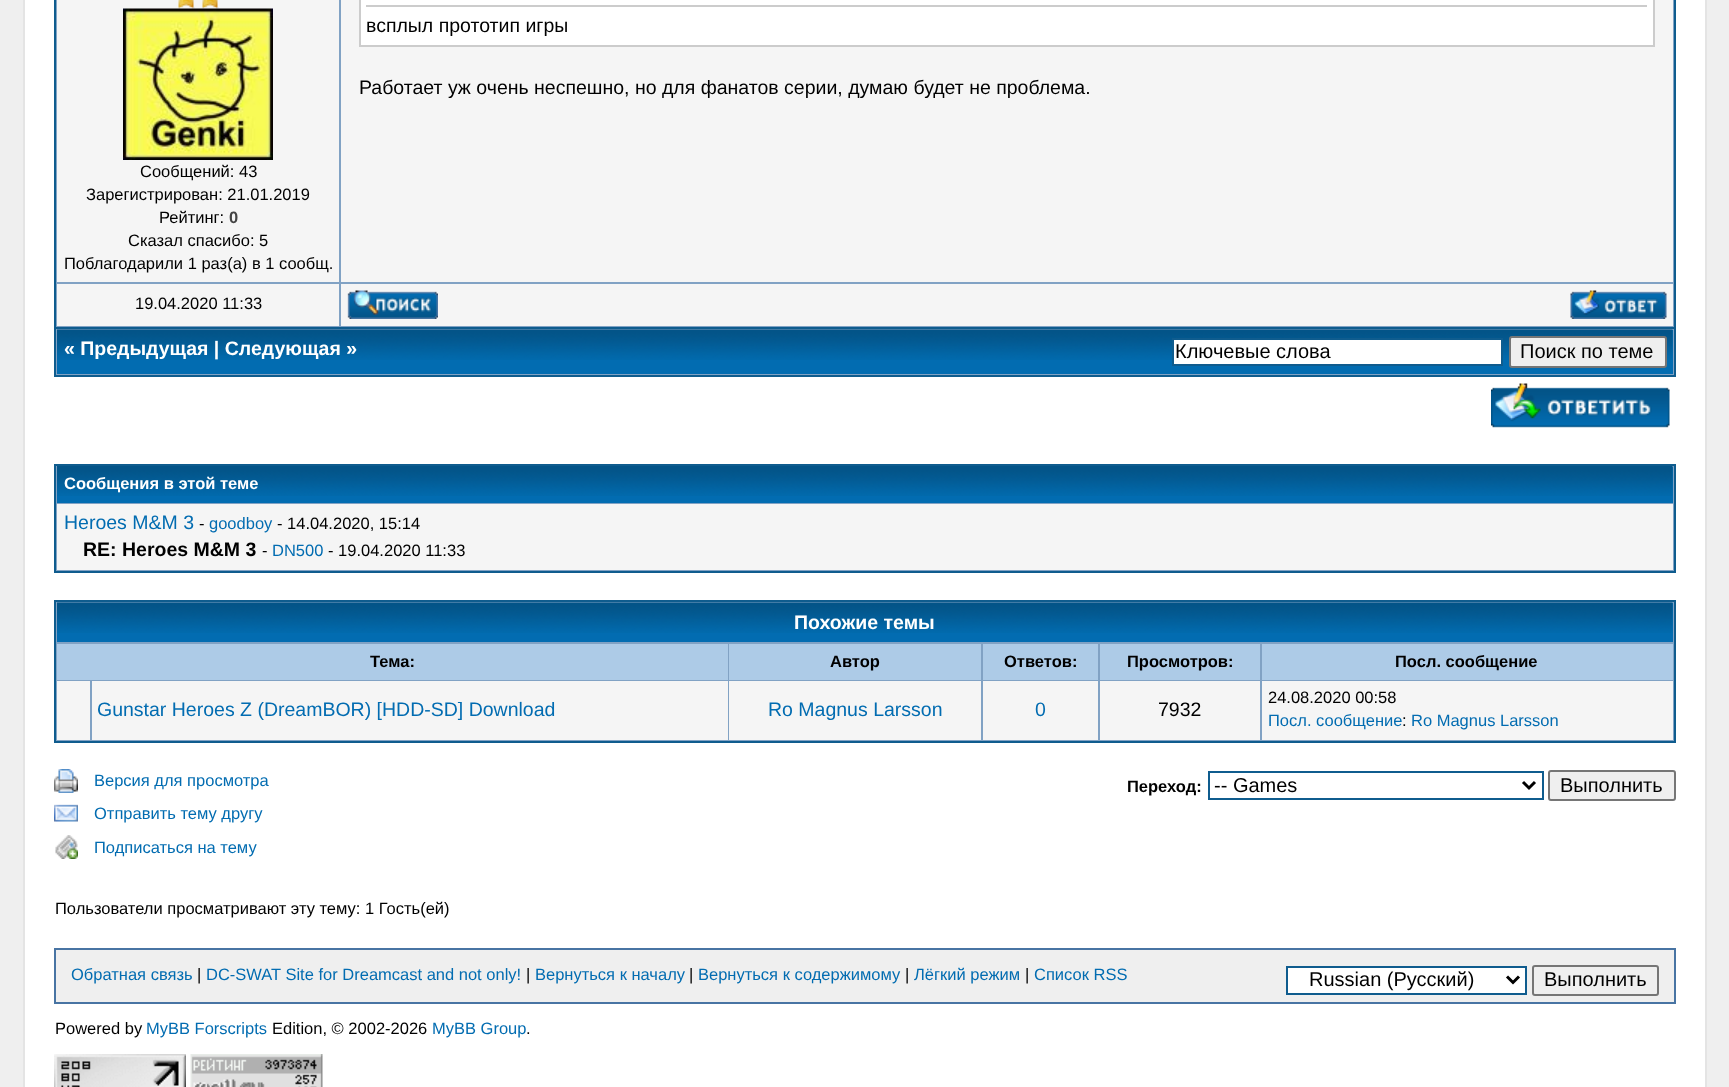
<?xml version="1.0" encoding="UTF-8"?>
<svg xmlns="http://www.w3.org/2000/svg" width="1729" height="1087">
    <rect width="100%" height="100%" fill="#EFEFEF"/>
    <rect x="24" y="-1" width="1682" height="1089" fill="#FFFFFF" stroke="#E4E4E4" stroke-width="2"/>
    <rect x="56" y="0" width="1618" height="327" fill="#81A2C4"/>
    <rect x="1674" y="0" width="2" height="377" fill="#0F5C8E"/>
    <rect x="54" y="327" width="1622" height="2" fill="#0F5C8E"/>
    <rect x="54" y="0" width="2" height="329" fill="#0F5C8E"/>
    <rect x="341" y="0" width="1332" height="282" fill="#F5F5F5"/>
    <rect x="360" y="-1" width="1294" height="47" fill="#FFFFFF" stroke="#CCCCCC" stroke-width="2"/>
    <rect x="366" y="5" width="1281" height="2" fill="#CCCCCC"/>
    <text x="366" y="32" font-family="Liberation Sans" font-size="19.5" fill="#000000">всплыл прототип игры</text>
    <text x="359" y="94" font-family="Liberation Sans" font-size="19.5" fill="#000000">Работает уж очень неспешно, но для фанатов серии, думаю будет не проблема.</text>
    <rect x="57" y="0" width="282" height="282" fill="#F5F5F5"/>
    <image x="178" y="0" width="17" height="9" href="img_01.png"/>
    <image x="202" y="0" width="17" height="9" href="img_01.png"/>
    <image x="123" y="8" width="150" height="152" href="img_02.png"/>
    <text x="140" y="177" font-family="Liberation Sans" font-size="16.5" fill="#000000">Сообщений: 43</text>
    <text x="86" y="200" font-family="Liberation Sans" font-size="16.5" fill="#000000">Зарегистрирован: 21.01.2019</text>
    <text x="159" y="223" font-family="Liberation Sans" font-size="16.5" fill="#000000">Рейтинг:</text>
    <text x="229" y="223" font-family="Liberation Sans" font-size="16.5" font-weight="700" fill="#444444">0</text>
    <text x="128" y="246" font-family="Liberation Sans" font-size="16.5" fill="#000000">Сказал спасибо: 5</text>
    <text x="64" y="269" font-family="Liberation Sans" font-size="16.5" fill="#000000">Поблагодарили 1 раз(а) в 1 сообщ.</text>
    <rect x="57" y="284" width="282" height="42" fill="#F5F5F5"/>
    <text x="135" y="309" font-family="Liberation Sans" font-size="16.5" fill="#000000">19.04.2020 11:33</text>
    <rect x="341" y="284" width="1332" height="42" fill="#F5F5F5"/>
    <image x="347" y="290" width="91" height="29" href="img_03.png"/>
    <image x="1570" y="290" width="97" height="29" href="img_04.png"/>
    <rect x="56" y="329" width="1618" height="46" fill="#81A2C4"/>
    <rect x="54" y="375" width="1622" height="2" fill="#0F5C8E"/>
    <rect x="54" y="329" width="2" height="48" fill="#0F5C8E"/>
    <rect x="57" y="330" width="1616" height="44" fill="#026CB1"/>
    <image x="57" y="329" width="1616" height="31" href="img_05.png"/>
    <text x="64" y="355" font-family="Liberation Sans" font-size="19.5" font-weight="700" fill="#FFFFFF">« Предыдущая | Следующая »</text>
    <rect x="1173" y="339" width="329" height="26" fill="#FFFFFF" stroke="#0F5C8E" stroke-width="2"/>
    <text x="1175" y="358" font-family="Liberation Sans" font-size="20" fill="#000000">Ключевые слова</text>
    <rect x="1510" y="337" width="156" height="30" rx="2" fill="#EFEFEF" stroke="#767676" stroke-width="2"/>
    <text x="1520" y="358" font-family="Liberation Sans" font-size="20" fill="#000000">Поиск по теме</text>
    <image x="1491" y="383" width="179" height="45" href="img_06.png"/>
    <rect x="55" y="465" width="1620" height="107" fill="#81A2C4" stroke="#0F5C8E" stroke-width="2"/>
    <rect x="57" y="467" width="1616" height="36" fill="#026CB1"/>
    <image x="57" y="466" width="1616" height="30" href="img_07.png"/>
    <text x="64" y="489" font-family="Liberation Sans" font-size="16.5" font-weight="700" fill="#FFFFFF">Сообщения в этой теме</text>
    <rect x="57" y="504" width="1616" height="66" fill="#F5F5F5"/>
    <text x="64" y="529" font-family="Liberation Sans" font-size="19.5" fill="#026CB1">Heroes M&amp;M 3</text>
    <text x="199" y="529" font-family="Liberation Sans" font-size="16.5" fill="#000000">-</text>
    <text x="209" y="529" font-family="Liberation Sans" font-size="16.5" fill="#026CB1">goodboy</text>
    <text x="277" y="529" font-family="Liberation Sans" font-size="16.5" fill="#000000">- 14.04.2020, 15:14</text>
    <text x="83" y="556" font-family="Liberation Sans" font-size="19.5" font-weight="700" fill="#000000">RE: Heroes M&amp;M 3</text>
    <text x="262" y="556" font-family="Liberation Sans" font-size="16.5" fill="#000000">-</text>
    <text x="272" y="556" font-family="Liberation Sans" font-size="16.5" fill="#026CB1">DN500</text>
    <text x="328" y="556" font-family="Liberation Sans" font-size="16.5" fill="#000000">- 19.04.2020 11:33</text>
    <rect x="55" y="601" width="1620" height="141" fill="#81A2C4" stroke="#0F5C8E" stroke-width="2"/>
    <rect x="57" y="603" width="1616" height="39" fill="#026CB1"/>
    <image x="57" y="602" width="1616" height="31" href="img_08.png"/>
    <text x="794" y="629" font-family="Liberation Sans" font-size="19.5" font-weight="700" fill="#FFFFFF">Похожие темы</text>
    <rect x="57" y="644" width="671" height="36" fill="#ADCBE7"/>
    <text x="370" y="667" font-family="Liberation Sans" font-size="16.5" font-weight="700" fill="#000000">Тема:</text>
    <rect x="729" y="644" width="252" height="36" fill="#ADCBE7"/>
    <text x="830" y="667" font-family="Liberation Sans" font-size="16.5" font-weight="700" fill="#000000">Автор</text>
    <rect x="983" y="644" width="115" height="36" fill="#ADCBE7"/>
    <text x="1004" y="667" font-family="Liberation Sans" font-size="16.5" font-weight="700" fill="#000000">Ответов:</text>
    <rect x="1100" y="644" width="160" height="36" fill="#ADCBE7"/>
    <text x="1127" y="667" font-family="Liberation Sans" font-size="16.5" font-weight="700" fill="#000000">Просмотров:</text>
    <rect x="1262" y="644" width="411" height="36" fill="#ADCBE7"/>
    <text x="1395" y="667" font-family="Liberation Sans" font-size="16.5" font-weight="700" fill="#000000">Посл. сообщение</text>
    <rect x="57" y="681" width="33" height="59" fill="#F5F5F5"/>
    <rect x="92" y="681" width="636" height="59" fill="#F5F5F5"/>
    <text x="97" y="716" font-family="Liberation Sans" font-size="19.5" fill="#026CB1">Gunstar Heroes Z (DreamBOR) [HDD-SD] Download</text>
    <rect x="729" y="681" width="252" height="59" fill="#F5F5F5"/>
    <text x="768" y="716" font-family="Liberation Sans" font-size="19.5" fill="#026CB1">Ro Magnus Larsson</text>
    <rect x="983" y="681" width="115" height="59" fill="#F5F5F5"/>
    <text x="1035" y="716" font-family="Liberation Sans" font-size="19.5" fill="#026CB1">0</text>
    <rect x="1100" y="681" width="160" height="59" fill="#F5F5F5"/>
    <text x="1158" y="716" font-family="Liberation Sans" font-size="19.5" fill="#000000">7932</text>
    <rect x="1262" y="681" width="411" height="59" fill="#F5F5F5"/>
    <text x="1268" y="703" font-family="Liberation Sans" font-size="16.5" fill="#000000">24.08.2020 00:58</text>
    <text x="1268" y="726" font-family="Liberation Sans" font-size="16.5" fill="#026CB1">Посл. сообщение</text>
    <text x="1402" y="726" font-family="Liberation Sans" font-size="16.5" fill="#000000">:</text>
    <text x="1411" y="726" font-family="Liberation Sans" font-size="16.5" fill="#026CB1">Ro Magnus Larsson</text>
    <image x="54" y="769" width="24" height="24" href="img_09.png"/>
    <text x="94" y="786" font-family="Liberation Sans" font-size="16.5" fill="#026CB1">Версия для просмотра</text>
    <image x="54" y="804" width="24" height="18" href="img_10.png"/>
    <text x="94" y="819" font-family="Liberation Sans" font-size="16.5" fill="#026CB1">Отправить тему другу</text>
    <image x="55" y="835" width="23" height="24" href="img_11.png"/>
    <text x="94" y="853" font-family="Liberation Sans" font-size="16.5" fill="#026CB1">Подписаться на тему</text>
    <text x="1127" y="792" font-family="Liberation Sans" font-size="16.5" font-weight="700" fill="#000000">Переход:</text>
    <rect x="1209" y="772" width="334" height="27" fill="none" stroke="#0F5C8E" stroke-width="2"/>
    <path d="M 1523 782 L 1529 788 L 1535 782" fill="none" stroke="#000000" stroke-width="3"/>
    <text x="1214" y="792" font-family="Liberation Sans" font-size="20" fill="#000000">-- Games</text>
    <rect x="1549" y="771" width="126" height="29" rx="2" fill="#EFEFEF" stroke="#767676" stroke-width="2"/>
    <text x="1560" y="792" font-family="Liberation Sans" font-size="20" fill="#000000">Выполнить</text>
    <text x="55" y="914" font-family="Liberation Sans" font-size="16.5" fill="#000000">Пользователи просматривают эту тему: 1 Гость(ей)</text>
    <rect x="55" y="949" width="1620" height="54" fill="#EFEFEF" stroke="#4874A3" stroke-width="2"/>
    <text x="71" y="980" font-family="Liberation Sans" font-size="16.5" fill="#026CB1">Обратная связь</text>
    <text x="197" y="980" font-family="Liberation Sans" font-size="16.5" fill="#000000">|</text>
    <text x="206" y="980" font-family="Liberation Sans" font-size="16.5" fill="#026CB1">DC-SWAT Site for Dreamcast and not only!</text>
    <text x="526" y="980" font-family="Liberation Sans" font-size="16.5" fill="#000000">|</text>
    <text x="535" y="980" font-family="Liberation Sans" font-size="16.5" fill="#026CB1">Вернуться к началу</text>
    <text x="689" y="980" font-family="Liberation Sans" font-size="16.5" fill="#000000">|</text>
    <text x="698" y="980" font-family="Liberation Sans" font-size="16.5" fill="#026CB1">Вернуться к содержимому</text>
    <text x="905" y="980" font-family="Liberation Sans" font-size="16.5" fill="#000000">|</text>
    <text x="914" y="980" font-family="Liberation Sans" font-size="16.5" fill="#026CB1">Лёгкий режим</text>
    <text x="1025" y="980" font-family="Liberation Sans" font-size="16.5" fill="#000000">|</text>
    <text x="1034" y="980" font-family="Liberation Sans" font-size="16.5" fill="#026CB1">Список RSS</text>
    <rect x="1287" y="967" width="239" height="27" fill="#FFFFFF" stroke="#0F5C8E" stroke-width="2"/>
    <path d="M 1507 976.5 L 1513 982.5 L 1519 976.5" fill="none" stroke="#000000" stroke-width="3"/>
    <text x="1309" y="986" font-family="Liberation Sans" font-size="20" fill="#000000">Russian (Русский)</text>
    <rect x="1533" y="966" width="125" height="29" rx="2" fill="none" stroke="#767676" stroke-width="2"/>
    <text x="1544" y="986" font-family="Liberation Sans" font-size="20" fill="#000000">Выполнить</text>
    <text x="55" y="1034" font-family="Liberation Sans" font-size="16.5" fill="#000000">Powered by</text>
    <text x="146" y="1034" font-family="Liberation Sans" font-size="16.5" fill="#026CB1">MyBB Forscripts</text>
    <text x="272" y="1034" font-family="Liberation Sans" font-size="16.5" fill="#000000">Edition, © 2002-2026</text>
    <text x="432" y="1034" font-family="Liberation Sans" font-size="16.5" fill="#026CB1">MyBB Group</text>
    <text x="526" y="1034" font-family="Liberation Sans" font-size="16.5" fill="#000000">.</text>
    <image x="54" y="1054" width="132" height="33" href="img_12.png"/>
    <image x="190" y="1054" width="133" height="33" href="img_13.png"/>
</svg>
